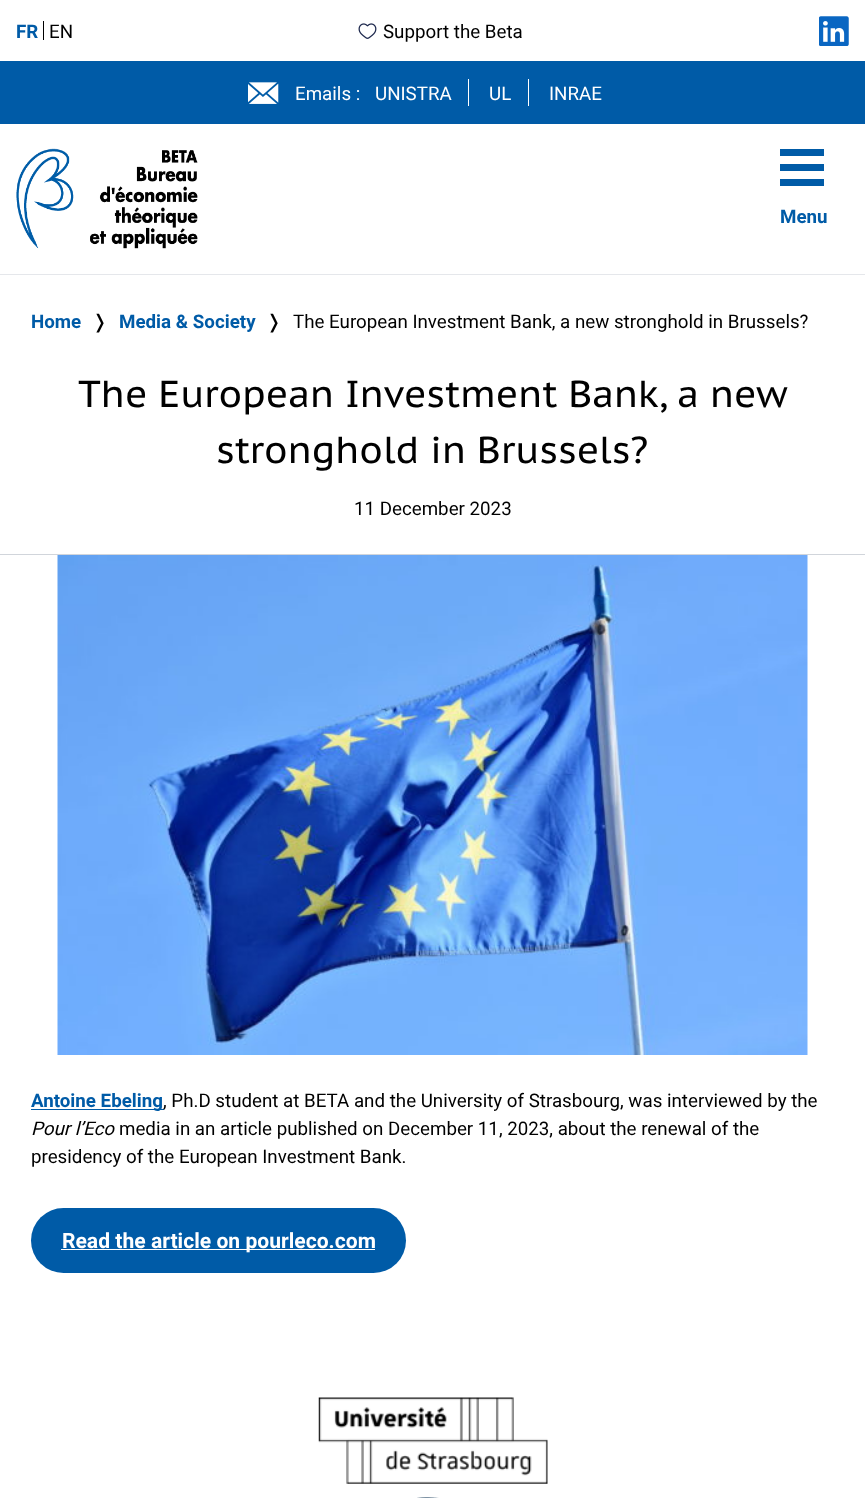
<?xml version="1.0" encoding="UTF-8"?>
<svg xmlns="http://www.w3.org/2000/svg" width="865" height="1498">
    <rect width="100%" height="100%" fill="#FFFFFF"/>
    <rect x="0" y="274" width="865" height="1" fill="#E5E7EB"/>
    <rect x="43" y="21" width="1" height="19" fill="#000000"/>
    <text x="16" y="38" font-family="Roboto" font-size="18.75" font-weight="700" fill="#005BA7">FR</text>
    <text x="49" y="38" font-family="Roboto" font-size="18.75" fill="#000000">EN</text>
    <image x="358" y="23" width="19" height="16" href="img_01.png"/>
    <text x="383" y="38" font-family="Roboto" font-size="18.75" fill="#000000">Support the Beta</text>
    <image x="819" y="16" width="30" height="30" href="img_02.png"/>
    <rect x="0" y="61" width="865" height="63" fill="#005BA7"/>
    <image x="248" y="82" width="31" height="22" href="img_03.png"/>
    <text x="295" y="100" font-family="Roboto" font-size="18.75" fill="#FFFFFF">Emails :</text>
    <rect x="468" y="79" width="1" height="27" fill="#FFFFFF"/>
    <text x="375" y="100" font-family="Roboto" font-size="18.75" fill="#FFFFFF">UNISTRA</text>
    <rect x="528" y="79" width="1" height="27" fill="#FFFFFF"/>
    <text x="489" y="100" font-family="Roboto" font-size="18.75" fill="#FFFFFF">UL</text>
    <text x="549" y="100" font-family="Roboto" font-size="18.75" fill="#FFFFFF">INRAE</text>
    <image x="16" y="148" width="182" height="101" href="img_04.png"/>
    <rect x="780" y="149" width="44" height="7" fill="#005BA7"/>
    <rect x="780" y="164" width="44" height="7" fill="#005BA7"/>
    <rect x="780" y="179" width="44" height="7" fill="#005BA7"/>
    <text x="780" y="223" font-family="Roboto" font-size="18.75" font-weight="700" fill="#005BA7">Menu</text>
    <text x="31" y="328" font-family="Roboto" font-size="18.75" font-weight="700" fill="#005BA7">Home</text>
    <text x="92" y="328" font-family="DejaVu Sans" font-size="18.75" fill="#000000">❭</text>
    <text x="119" y="328" font-family="Roboto" font-size="18.75" font-weight="700" fill="#005BA7">Media &amp; Society</text>
    <text x="266" y="328" font-family="DejaVu Sans" font-size="18.75" fill="#000000">❭</text>
    <text x="293" y="328" font-family="Roboto" font-size="18.75" fill="#000000">The European Investment Bank, a new stronghold in Brussels?</text>
    <rect x="0" y="554" width="865" height="1" fill="#D1D5DB"/>
    <text x="78" y="407" font-family="PT Sans Caption" font-size="37.5" fill="#000000">The European Investment Bank, a new</text>
    <text x="216" y="463" font-family="PT Sans Caption" font-size="37.5" fill="#000000">stronghold in Brussels?</text>
    <text x="354" y="515" font-family="Roboto" font-size="18.75" fill="#000000">11 December 2023</text>
    <image x="57" y="555" width="751" height="500" href="img_05.png"/>
    <rect x="31" y="1109" width="133" height="1" fill="#005BA7"/>
    <text x="31" y="1107" font-family="Roboto" font-size="18.75" font-weight="700" fill="#005BA7">Antoine Ebeling</text>
    <text x="163" y="1107" font-family="Roboto" font-size="18.75" fill="#000000">, Ph.D student at BETA and the University of Strasbourg, was interviewed by the</text>
    <text x="31" y="1135" font-family="Roboto" font-size="18.75" font-style="italic" fill="#000000">Pour l’Eco</text>
    <text x="119" y="1135" font-family="Roboto" font-size="18.75" fill="#000000">media in an article published on December 11, 2023, about the renewal of the</text>
    <text x="31" y="1163" font-family="Roboto" font-size="18.75" fill="#000000">presidency of the European Investment Bank.</text>
    <rect x="31" y="1208" width="375" height="65" rx="32.5" fill="#005BA7"/>
    <rect x="61" y="1249" width="314" height="1" fill="#FFFFFF"/>
    <text x="62" y="1248" font-family="Roboto" font-size="21.1" font-weight="700" fill="#FFFFFF">Read the article on pourleco.com</text>
    <image x="318" y="1397" width="230" height="87" href="img_06.png"/>
    <image x="417" y="1497" width="22" height="1" href="img_07.png"/>
</svg>
